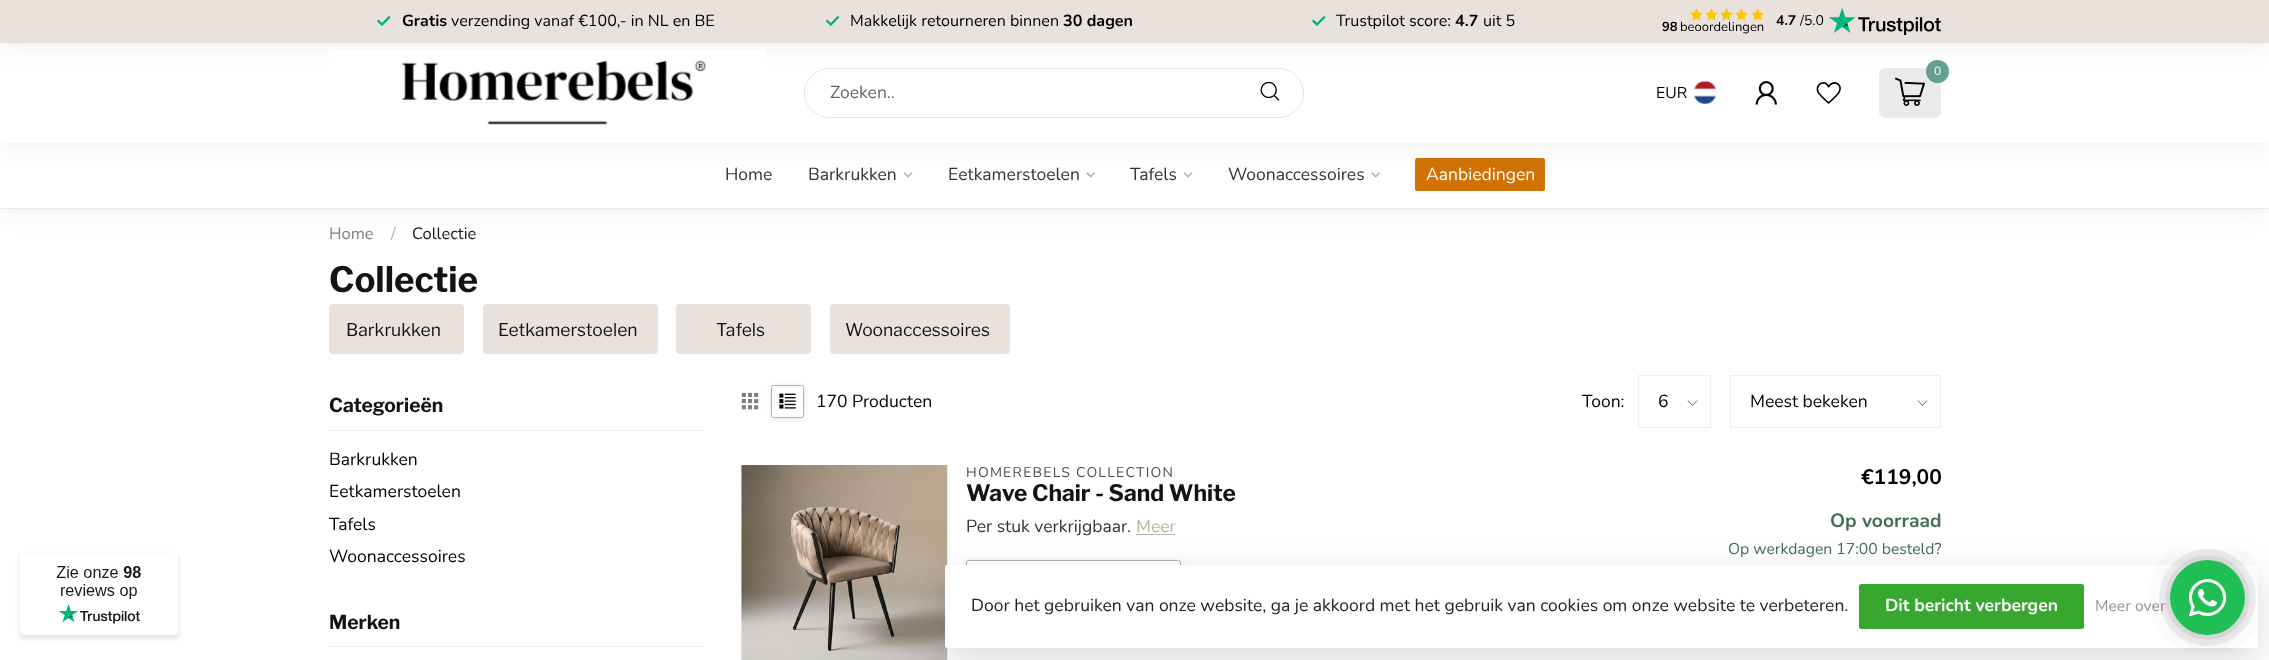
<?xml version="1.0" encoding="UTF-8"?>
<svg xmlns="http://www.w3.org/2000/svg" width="2269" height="660">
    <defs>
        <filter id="blur1" x="-50%" y="-200%" width="200%" height="500%"><feGaussianBlur stdDeviation="14"/></filter>
        <filter id="blur2" x="-50%" y="-200%" width="200%" height="500%"><feGaussianBlur stdDeviation="2.5"/></filter>
        <clipPath id="clip1"><path d="M 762 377 H 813 V 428 H 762 Z M 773.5 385 H 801.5 C 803 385 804 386 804 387.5 V 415.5 C 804 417 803 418 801.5 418 H 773.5 C 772 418 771 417 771 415.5 V 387.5 C 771 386 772 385 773.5 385 Z" clip-rule="evenodd"/></clipPath>
        <clipPath id="clip2"><path d="M 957 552 H 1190 V 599 H 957 Z M 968.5 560 H 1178.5 C 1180 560 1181 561 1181 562.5 V 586.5 C 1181 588 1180 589 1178.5 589 H 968.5 C 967 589 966 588 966 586.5 V 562.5 C 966 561 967 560 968.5 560 Z" clip-rule="evenodd"/></clipPath>
        <filter id="blur3" x="-50%" y="-200%" width="200%" height="500%"><feGaussianBlur stdDeviation="19"/></filter>
    </defs>
    <rect width="100%" height="100%" fill="#FFFFFF"/>
    <rect x="0" y="143" width="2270" height="66" fill="#000000" fill-opacity="0.08" filter="url(#blur1)"/>
    <rect x="0" y="143" width="2269" height="65" fill="#FFFFFF"/>
    <image x="903" y="172" width="10" height="6" href="img_12.png"/>
    <image x="1086" y="172" width="9" height="6" href="img_13.png"/>
    <image x="1183" y="172" width="10" height="6" href="img_12.png"/>
    <image x="1371" y="172" width="9" height="6" href="img_13.png"/>
    <rect x="1415" y="158" width="130" height="33" rx="2.5" fill="#D27204"/>
    <rect x="0" y="0" width="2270" height="143" fill="#000000" fill-opacity="0.08" filter="url(#blur1)"/>
    <rect x="0" y="43" width="2269" height="100" fill="#FFFFFF"/>
    <rect x="0" y="0" width="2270" height="43" fill="#000000" fill-opacity="0.08" filter="url(#blur1)"/>
    <rect x="0" y="0" width="2269" height="43" fill="#E9E2DC"/>
    <image x="377" y="15" width="14" height="11" href="img_01.png"/>
    <text x="402" y="26" font-family="Nunito" font-size="16.1" font-weight="700" fill="#000000">Gratis</text>
    <text x="451" y="26" font-family="Nunito" font-size="16.1" fill="#000000">verzending vanaf €100,- in NL en BE</text>
    <image x="825" y="15" width="15" height="11" href="img_02.png"/>
    <text x="850" y="26" font-family="Nunito" font-size="16.1" fill="#000000">Makkelijk retourneren binnen</text>
    <text x="1063" y="26" font-family="Nunito" font-size="16.1" font-weight="700" fill="#000000">30 dagen</text>
    <image x="1312" y="15" width="14" height="11" href="img_01.png"/>
    <text x="1336" y="26" font-family="Nunito" font-size="16.1" fill="#000000">Trustpilot score:</text>
    <text x="1455" y="26" font-family="Nunito" font-size="16.1" font-weight="700" fill="#000000">4.7</text>
    <text x="1483" y="26" font-family="Nunito" font-size="16.1" fill="#000000">uit 5</text>
    <image x="1690" y="8" width="13" height="13" href="img_03.png"/>
    <image x="1705" y="8" width="13" height="13" href="img_03.png"/>
    <image x="1720" y="8" width="13" height="13" href="img_03.png"/>
    <image x="1735" y="8" width="13" height="13" href="img_03.png"/>
    <image x="1751" y="8" width="13" height="13" href="img_04.png"/>
    <text x="1662" y="31" font-family="Nunito" font-size="13" font-weight="700" fill="#000000">98</text>
    <text x="1680" y="31" font-family="Nunito" font-size="13" fill="#000000">beoordelingen</text>
    <text x="1776" y="25" font-family="Nunito" font-size="14" font-weight="700" fill="#000000">4.7</text>
    <text x="1800" y="25" font-family="Nunito" font-size="14" fill="#000000">/5.0</text>
    <image x="1829" y="8" width="112" height="27" href="img_05.png"/>
    <image x="329" y="49" width="437" height="76" href="img_06.png"/>
    <rect x="804.5" y="68.5" width="499" height="49" rx="24.5" fill="none" stroke="#E5E5E5"/>
    <text x="830" y="98" font-family="Nunito" font-size="17.5" fill="#666666">Zoeken..</text>
    <image x="1260" y="81" width="20" height="20" href="img_07.png"/>
    <rect x="1879" y="68" width="62" height="50" rx="6" fill="#EAEAEA"/>
    <circle cx="1937.5" cy="71.5" r="11.5" fill="#669F91"/>
    <text x="1934" y="75" font-family="Nunito" font-size="12" fill="#FFFFFF">0</text>
    <image x="1895" y="77" width="30" height="29" href="img_08.png"/>
    <text x="1656" y="98" font-family="Nunito" font-size="15.75" fill="#000000">EUR</text>
    <image x="1693" y="80" width="23" height="24" href="img_09.png"/>
    <image x="1755" y="81" width="22" height="24" href="img_10.png"/>
    <image x="1816" y="82" width="25" height="22" href="img_11.png"/>
    <rect x="0" y="208" width="2269" height="1" fill="#EFE9E9"/>
    <text x="725" y="180" font-family="Nunito" font-size="17.5" fill="#333333">Home</text>
    <text x="808" y="180" font-family="Nunito" font-size="17.5" fill="#333333">Barkrukken</text>
    <text x="948" y="180" font-family="Nunito" font-size="17.5" fill="#333333">Eetkamerstoelen</text>
    <text x="1130" y="180" font-family="Nunito" font-size="17.5" fill="#333333">Tafels</text>
    <text x="1228" y="180" font-family="Nunito" font-size="17.5" fill="#333333">Woonaccessoires</text>
    <text x="1426" y="180" font-family="Nunito" font-size="17.5" fill="#FFFFFF">Aanbiedingen</text>
    <text x="329" y="239" font-family="Nunito" font-size="16.5" fill="#808080">Home</text>
    <text x="391" y="239" font-family="Nunito" font-size="16.5" fill="#B3B3B3">/</text>
    <text x="412" y="239" font-family="Nunito" font-size="16.5" fill="#1A1A1A">Collectie</text>
    <rect x="20" y="555" width="158" height="83" rx="4" fill="#DCDCE6" filter="url(#blur2)"/>
    <rect x="20" y="553" width="158" height="82" rx="4" fill="#FFFFFF"/>
    <image x="56" y="566" width="85" height="58" href="img_14.png"/>
    <text x="329" y="292" font-family="Libre Franklin" font-size="35" font-weight="700" fill="#131313">Collectie</text>
    <rect x="329" y="304" width="135" height="50" rx="4" fill="#E9E2DC"/>
    <text x="346" y="336" font-family="Libre Franklin" font-size="17.5" fill="#131313">Barkrukken</text>
    <rect x="483" y="304" width="175" height="50" rx="4" fill="#E9E2DC"/>
    <text x="498" y="336" font-family="Libre Franklin" font-size="17.5" fill="#131313">Eetkamerstoelen</text>
    <rect x="676" y="304" width="135" height="50" rx="4" fill="#E9E2DC"/>
    <text x="716" y="336" font-family="Libre Franklin" font-size="17.5" fill="#131313">Tafels</text>
    <rect x="830" y="304" width="180" height="50" rx="4" fill="#E9E2DC"/>
    <text x="845" y="336" font-family="Libre Franklin" font-size="17.5" fill="#131313">Woonaccessoires</text>
    <rect x="329" y="430" width="375" height="1" fill="#EEEEEE"/>
    <text x="329" y="412" font-family="Libre Franklin" font-size="19.25" font-weight="700" fill="#131313">Categorieën</text>
    <text font-family="Nunito" font-size="17.5" fill="#000000">
        <tspan x="329" y="465">Barkrukken</tspan>
        <tspan x="329" y="497">Eetkamerstoelen</tspan>
        <tspan x="329" y="530">Tafels</tspan>
        <tspan x="329" y="562">Woonaccessoires</tspan>
    </text>
    <rect x="329" y="646" width="375" height="1" fill="#EEEEEE"/>
    <text x="329" y="629" font-family="Libre Franklin" font-size="19.25" font-weight="700" fill="#131313">Merken</text>
    <image x="741" y="392" width="18" height="18" href="img_15.png"/>
    <g clip-path="url(#clip1)">
        <rect x="771" y="386" width="33" height="33" rx="2.5" fill="#000000" fill-opacity="0.1" filter="url(#blur2)"/>
    </g>
    <rect x="771.5" y="385.5" width="32" height="32" rx="2" fill="none" stroke="#B2B2B2"/>
    <image x="779" y="393" width="17" height="16" href="img_16.png"/>
    <text x="816" y="407" font-family="Nunito" font-size="17.5" fill="#000000">170 Producten</text>
    <text x="1582" y="407" font-family="Nunito" font-size="17.5" fill="#000000">Toon:</text>
    <path d="M 1697 400.5 L 1692.5 405.5 L 1688 400.5" fill="none" stroke="#595959" stroke-width="0.9"/>
    <rect x="1638.5" y="375.5" width="72" height="52" fill="none" stroke="#EEEEEE"/>
    <text x="1658" y="407" font-family="Nunito" font-size="17.5" fill="#000000">6</text>
    <path d="M 1927 400.5 L 1922.5 405.5 L 1918 400.5" fill="none" stroke="#595959" stroke-width="0.9"/>
    <rect x="1730.5" y="375.5" width="210" height="52" fill="none" stroke="#EEEEEE"/>
    <text x="1750" y="407" font-family="Nunito" font-size="17.5" fill="#000000">Meest bekeken</text>
    <image x="741" y="465" width="207" height="195" href="img_17.png"/>
    <text x="966" y="477" font-family="Nunito" font-size="14" letter-spacing="1.25" fill="#4D4D4D">HOMEREBELS COLLECTION</text>
    <text x="966" y="501" font-family="Libre Franklin" font-size="22.75" font-weight="700" fill="#131313">Wave Chair - Sand White</text>
    <text x="966" y="532" font-family="Nunito" font-size="17.5" fill="#333333">Per stuk verkrijgbaar.</text>
    <text x="1136" y="532" font-family="Nunito" font-size="17.5" fill="#BCB59B">Meer</text>
    <rect x="1136" y="534" width="39" height="1" fill="#BCB59B"/>
    <g clip-path="url(#clip2)">
        <rect x="966" y="561" width="215" height="29" rx="2.5" fill="#000000" fill-opacity="0.1" filter="url(#blur2)"/>
    </g>
    <rect x="966.5" y="560.5" width="214" height="28" rx="2" fill="none" stroke="#B2B2B2"/>
    <text x="1861" y="484" font-family="Nunito" font-size="21" font-weight="700" fill="#000000">€119,00</text>
    <text x="1830" y="527" font-family="Nunito" font-size="19.25" font-weight="700" fill="#417055">Op voorraad</text>
    <text x="1728" y="554" font-family="Nunito" font-size="15.75" fill="#417055">Op werkdagen 17:00 besteld?</text>
    <rect x="945" y="578" width="1313" height="82" rx="2.5" fill="#000000" fill-opacity="0.15" filter="url(#blur3)"/>
    <rect x="945" y="565" width="1313" height="83" rx="2.5" fill="#FFFFFF"/>
    <text x="2095" y="611" font-family="Nunito" font-size="15.75" fill="#949494">Meer over</text>
    <image x="2149" y="549" width="109" height="102" href="img_18.png"/>
    <text x="971" y="611" font-family="Nunito" font-size="17.5" fill="#222222">Door het gebruiken van onze website, ga je akkoord met het gebruik van cookies om onze website te verbeteren.</text>
    <rect x="1859" y="584" width="225" height="45" rx="2.5" fill="#37A730"/>
    <text x="1885" y="611" font-family="Nunito" font-size="17.5" font-weight="700" fill="#FFFFFF">Dit bericht verbergen</text>
</svg>
